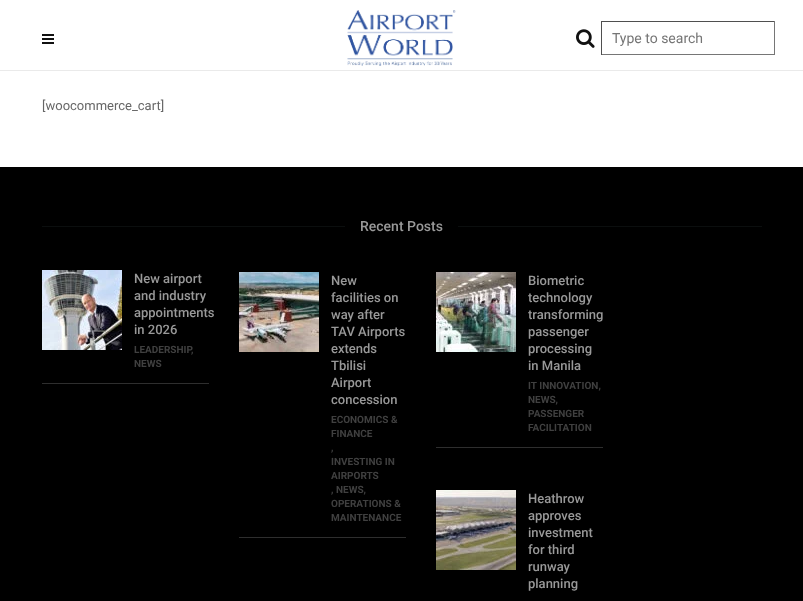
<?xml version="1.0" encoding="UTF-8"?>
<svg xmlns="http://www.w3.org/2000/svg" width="803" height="601">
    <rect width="100%" height="100%" fill="#FFFFFF"/>
    <rect x="0" y="70" width="803" height="1" fill="#EAEAEA"/>
    <rect x="42" y="34" width="12" height="2" fill="#111111"/>
    <rect x="42" y="38" width="12" height="2" fill="#111111"/>
    <rect x="42" y="42" width="12" height="2" fill="#111111"/>
    <image x="347" y="10" width="109" height="56" href="img_01.png"/>
    <image x="576" y="29" width="19" height="19" href="img_02.png"/>
    <rect x="601" y="21" width="174" height="1" fill="#4F4F4F"/>
    <rect x="774" y="21" width="1" height="34" fill="#767676"/>
    <rect x="601" y="54" width="174" height="1" fill="#767676"/>
    <rect x="601" y="21" width="1" height="34" fill="#4F4F4F"/>
    <text x="612" y="43" font-family="Roboto" font-size="14" fill="#757575">Type to search</text>
    <text x="42" y="110" font-family="Roboto" font-size="13" fill="#666666">[woocommerce_cart]</text>
    <rect x="0" y="167" width="803" height="434" fill="#000000"/>
    <rect x="42" y="226" width="303" height="1" fill="#0B0E0E"/>
    <text x="360" y="231" font-family="Roboto" font-size="14" font-weight="500" fill="#999999">Recent Posts</text>
    <rect x="458" y="226" width="304" height="1" fill="#0B0E0E"/>
    <rect x="42" y="383" width="167" height="1" fill="#2E2E2E"/>
    <image x="42" y="270" width="80" height="80" href="img_03.png"/>
    <text font-family="Roboto" font-size="13" font-weight="500" fill="#999999">
        <tspan x="134" y="283">New airport</tspan>
        <tspan x="134" y="300">and industry</tspan>
        <tspan x="134" y="317">appointments</tspan>
        <tspan x="134" y="334">in 2026</tspan>
    </text>
    <text font-family="Roboto" font-size="10" font-weight="700" fill="#404040">
        <tspan x="134" y="353">LEADERSHIP,</tspan>
        <tspan x="134" y="367">NEWS</tspan>
    </text>
    <rect x="239" y="537" width="167" height="1" fill="#2E2E2E"/>
    <image x="239" y="272" width="80" height="80" href="img_04.png"/>
    <text font-family="Roboto" font-size="13" font-weight="500" fill="#999999">
        <tspan x="331" y="285">New</tspan>
        <tspan x="331" y="302">facilities on</tspan>
        <tspan x="331" y="319">way after</tspan>
        <tspan x="331" y="336">TAV Airports</tspan>
        <tspan x="331" y="353">extends</tspan>
        <tspan x="331" y="370">Tbilisi</tspan>
        <tspan x="331" y="387">Airport</tspan>
        <tspan x="331" y="404">concession</tspan>
    </text>
    <text font-family="Roboto" font-size="10" font-weight="700" fill="#404040">
        <tspan x="331" y="423">ECONOMICS &amp;</tspan>
        <tspan x="331" y="437">FINANCE</tspan>
        <tspan x="331" y="451">,</tspan>
        <tspan x="331" y="465">INVESTING IN</tspan>
        <tspan x="331" y="479">AIRPORTS</tspan>
        <tspan x="331" y="493">, NEWS,</tspan>
        <tspan x="331" y="507">OPERATIONS &amp;</tspan>
        <tspan x="331" y="521">MAINTENANCE</tspan>
    </text>
    <rect x="436" y="447" width="167" height="1" fill="#2E2E2E"/>
    <image x="436" y="272" width="80" height="80" href="img_05.png"/>
    <text font-family="Roboto" font-size="13" font-weight="500" fill="#999999">
        <tspan x="528" y="285">Biometric</tspan>
        <tspan x="528" y="302">technology</tspan>
        <tspan x="528" y="319">transforming</tspan>
        <tspan x="528" y="336">passenger</tspan>
        <tspan x="528" y="353">processing</tspan>
        <tspan x="528" y="370">in Manila</tspan>
    </text>
    <text font-family="Roboto" font-size="10" font-weight="700" fill="#404040">
        <tspan x="528" y="389">IT INNOVATION,</tspan>
        <tspan x="528" y="403">NEWS,</tspan>
        <tspan x="528" y="417">PASSENGER</tspan>
        <tspan x="528" y="431">FACILITATION</tspan>
    </text>
    <image x="436" y="490" width="80" height="80" href="img_06.png"/>
    <text font-family="Roboto" font-size="13" font-weight="500" fill="#999999">
        <tspan x="528" y="503">Heathrow</tspan>
        <tspan x="528" y="520">approves</tspan>
        <tspan x="528" y="537">investment</tspan>
        <tspan x="528" y="554">for third</tspan>
        <tspan x="528" y="571">runway</tspan>
        <tspan x="528" y="588">planning</tspan>
    </text>
</svg>
